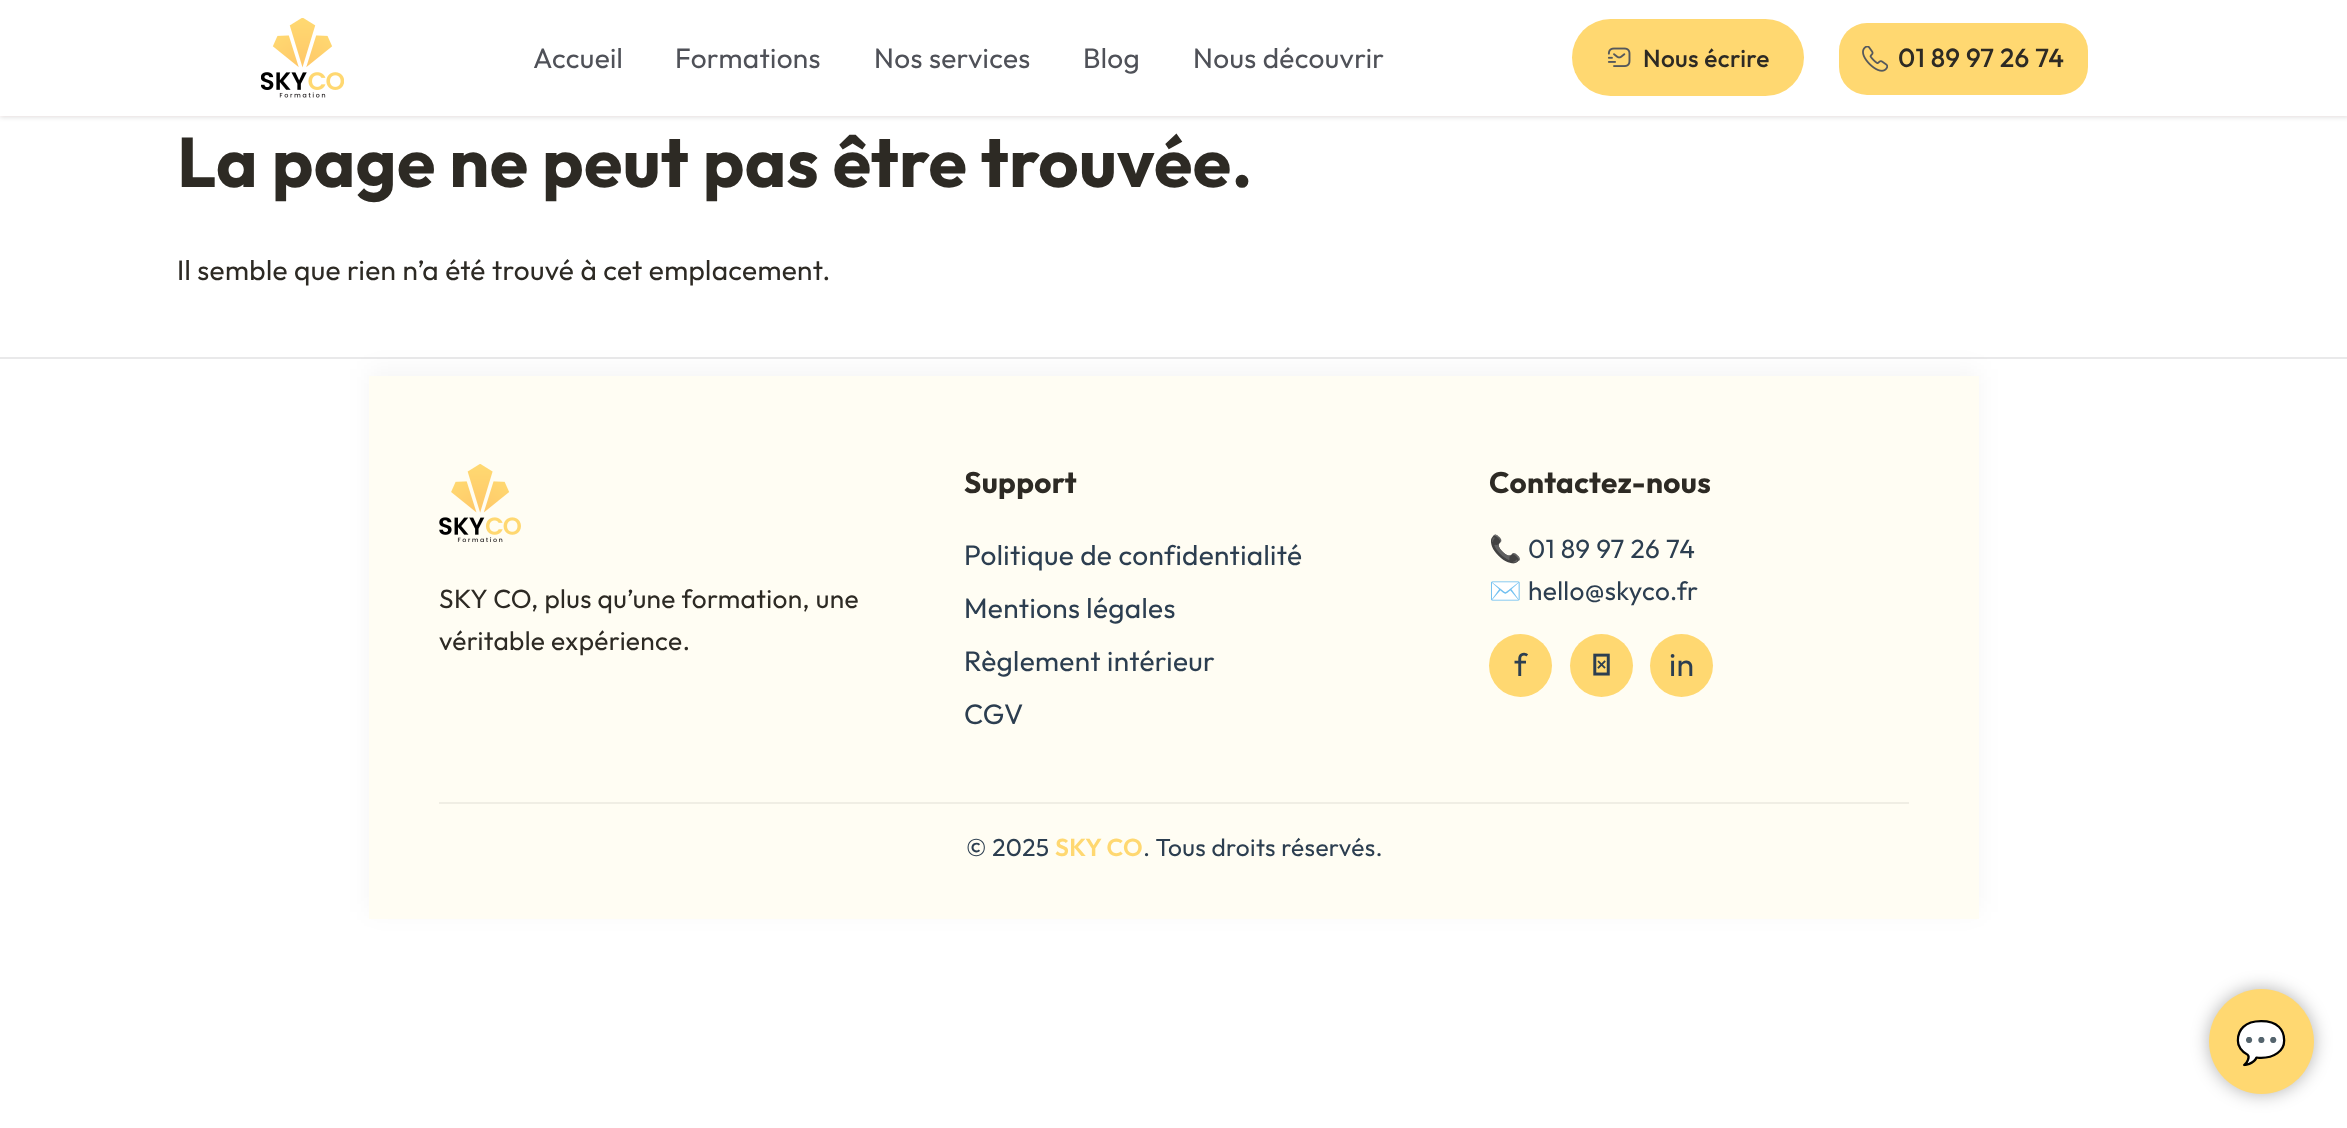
<?xml version="1.0" encoding="UTF-8"?>
<svg xmlns="http://www.w3.org/2000/svg" width="2347" height="1128">
    <defs>
        <clipPath id="clip1"><path d="M 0 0 H 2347 V 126 H 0 Z M 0 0 H 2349 V 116 H 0 Z" clip-rule="evenodd"/></clipPath>
        <filter id="blur1" x="-50%" y="-200%" width="200%" height="500%"><feGaussianBlur stdDeviation="2.5"/></filter>
        <filter id="blur2" x="-50%" y="-200%" width="200%" height="500%"><feGaussianBlur stdDeviation="12"/></filter>
        <filter id="blur3" x="-50%" y="-200%" width="200%" height="500%"><feGaussianBlur stdDeviation="9"/></filter>
    </defs>
    <rect width="100%" height="100%" fill="#FFFFFF"/>
    <g clip-path="url(#clip1)">
        <rect x="0" y="2" width="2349" height="115" fill="#231204" fill-opacity="0.14" filter="url(#blur1)"/>
    </g>
    <image x="261" y="18" width="83" height="80" href="img_01.png"/>
    <text x="533" y="68" font-family="Outfit" font-size="28" letter-spacing="0.35" fill="#4F5158">Accueil</text>
    <text x="675" y="68" font-family="Outfit" font-size="28" letter-spacing="0.35" fill="#4F5158">Formations</text>
    <text x="874" y="68" font-family="Outfit" font-size="28" letter-spacing="0.35" fill="#4F5158">Nos services</text>
    <text x="1083" y="68" font-family="Outfit" font-size="28" letter-spacing="0.35" fill="#4F5158">Blog</text>
    <text x="1193" y="68" font-family="Outfit" font-size="28" letter-spacing="0.35" fill="#4F5158">Nous découvrir</text>
    <rect x="1572" y="19" width="232" height="77" rx="38.5" fill="#FFD871"/>
    <image x="1607" y="47" width="24" height="20" href="img_02.png"/>
    <text x="1643" y="67" font-family="Outfit" font-size="24.5" font-weight="500" letter-spacing="0.35" fill="#2D2A24">Nous écrire</text>
    <rect x="1839" y="23" width="249" height="72" rx="28" fill="#FFD871"/>
    <image x="1862" y="46" width="26" height="26" href="img_03.png"/>
    <text x="1898" y="67" font-family="Outfit" font-size="26.25" font-weight="500" letter-spacing="0.35" fill="#2D2A24">01 89 97 26 74</text>
    <text x="177" y="187" font-family="Outfit" font-size="70" font-weight="700" letter-spacing="0.35" fill="#2D2A24">La page ne peut pas être trouvée.</text>
    <text x="177" y="280" font-family="Outfit" font-size="28" letter-spacing="0.35" fill="#2D2A24">Il semble que rien n’a été trouvé à cet emplacement.</text>
    <rect x="0" y="357" width="2347" height="2" fill="#E9E9EA"/>
    <rect x="369" y="369" width="1610" height="543" fill="#000000" fill-opacity="0.04" filter="url(#blur2)"/>
    <rect x="369" y="376" width="1610" height="543" fill="#FFFDF3"/>
    <image x="439" y="464" width="82" height="78" href="img_04.png"/>
    <text font-family="Outfit" font-size="26.25" letter-spacing="0.35" fill="#2D2A24">
        <tspan x="439" y="608">SKY CO, plus qu’une formation, une</tspan>
        <tspan x="439" y="650">véritable expérience.</tspan>
    </text>
    <text x="964" y="493" font-family="Outfit" font-size="29.75" font-weight="700" letter-spacing="0.35" fill="#2D2A24">Support</text>
    <text font-family="Outfit" font-size="28" letter-spacing="0.35" fill="#2C3E50">
        <tspan x="964" y="565">Politique de confidentialité</tspan>
        <tspan x="964" y="618">Mentions légales</tspan>
        <tspan x="964" y="671">Règlement intérieur</tspan>
        <tspan x="964" y="724">CGV</tspan>
    </text>
    <text x="1489" y="493" font-family="Outfit" font-size="29.75" font-weight="700" letter-spacing="0.35" fill="#2D2A24">Contactez-nous</text>
    <text x="1489" y="558" font-family="Noto Color Emoji" font-size="26.25" letter-spacing="0.35" fill="#2D2A24">📞</text>
    <text x="1528" y="558" font-family="Outfit" font-size="26.25" letter-spacing="0.35" fill="#2C3E50">01 89 97 26 74</text>
    <text x="1489" y="600" font-family="'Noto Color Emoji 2'" font-size="26.25" letter-spacing="0.35" fill="#2D2A24">✉️</text>
    <text x="1528" y="600" font-family="Outfit" font-size="26.25" letter-spacing="0.35" fill="#2C3E50">hello@skyco.fr</text>
    <circle cx="1520.5" cy="665.5" r="31.5" fill="#FFD871"/>
    <text x="1514" y="676" font-family="Outfit" font-size="32" letter-spacing="0.35" fill="#2C3E50">f</text>
    <circle cx="1601.5" cy="665.5" r="31.5" fill="#FFD871"/>
    <image x="1593" y="653" width="17" height="23" href="img_05.png"/>
    <circle cx="1681.5" cy="665.5" r="31.5" fill="#FFD871"/>
    <text x="1669" y="676" font-family="Outfit" font-size="32" letter-spacing="0.35" fill="#2C3E50">in</text>
    <rect x="439" y="802" width="1470" height="2" fill="#F0EEE4"/>
    <text x="966" y="856" font-family="Outfit" font-size="24.5" letter-spacing="0.35" fill="#2C3E50">© 2025</text>
    <text x="1055" y="856" font-family="Outfit" font-size="24.5" font-weight="600" letter-spacing="0.35" fill="#FFD871">SKY CO</text>
    <text x="1143" y="856" font-family="Outfit" font-size="24.5" letter-spacing="0.35" fill="#2C3E50">. Tous droits réservés.</text>
    <rect x="2209" y="989" width="105" height="105" rx="52.5" fill="#000000" fill-opacity="0.3" filter="url(#blur3)"/>
    <circle cx="2261.5" cy="1041.5" r="52.5" fill="#FFD871"/>
    <text x="2235" y="1057" font-family="Noto Color Emoji" font-size="42" font-weight="700" letter-spacing="0.35" fill="#000000">💬</text>
</svg>
